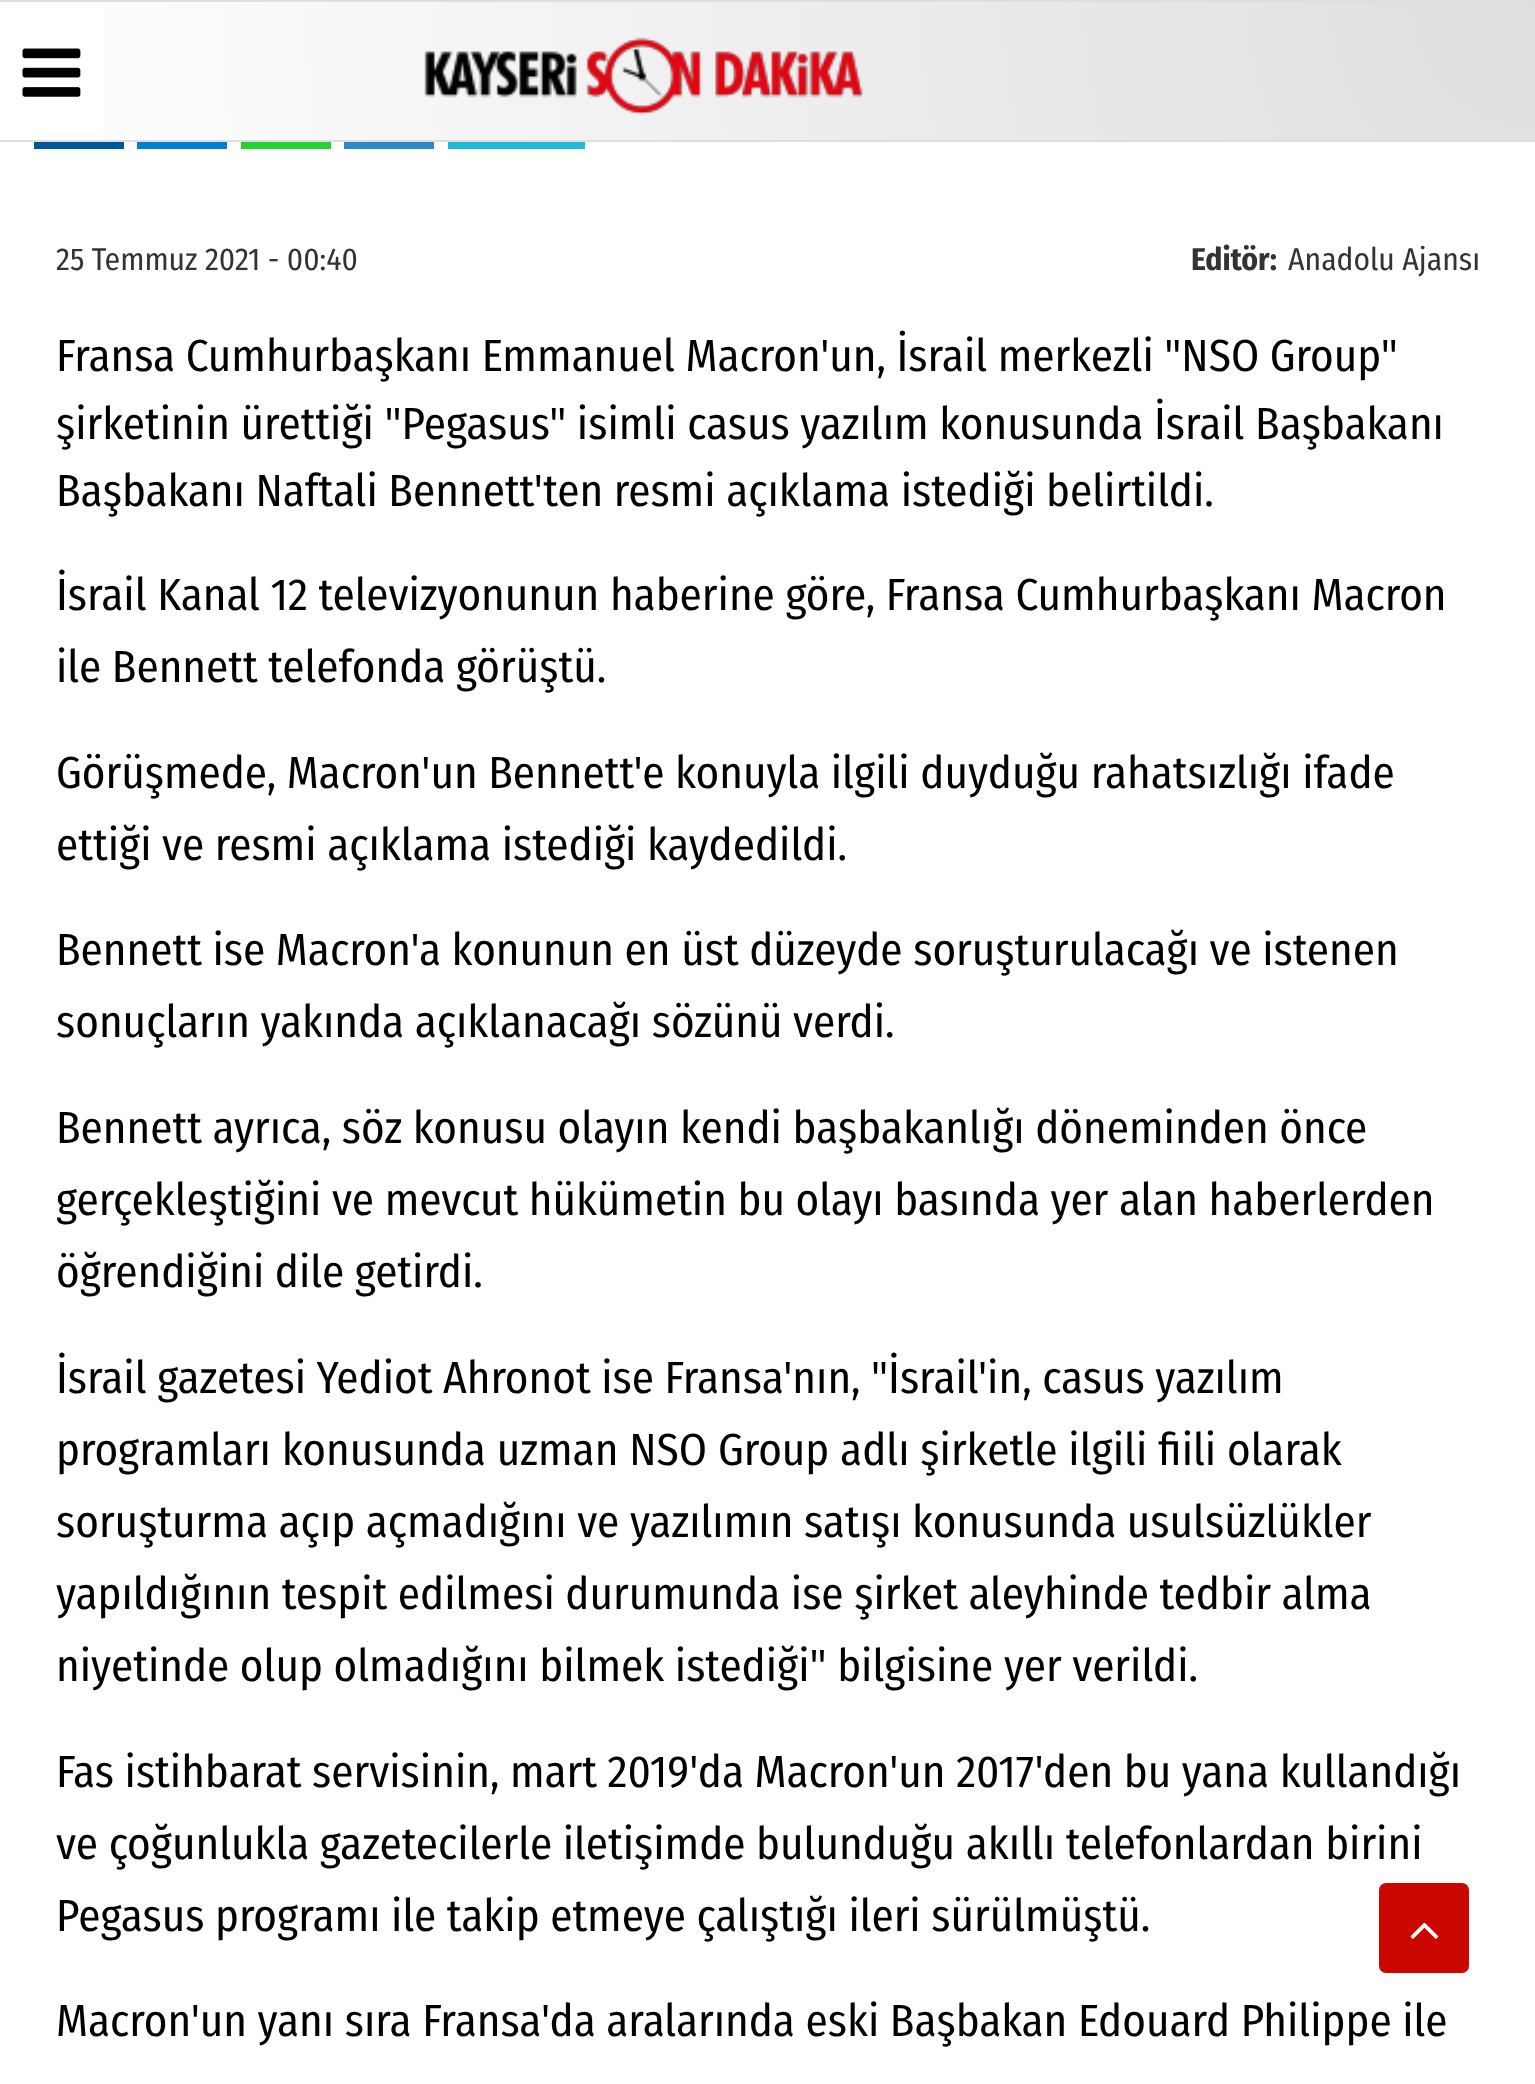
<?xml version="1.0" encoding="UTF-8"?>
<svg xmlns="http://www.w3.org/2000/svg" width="1535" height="2084">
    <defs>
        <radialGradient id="g1" gradientUnits="userSpaceOnUse" cx="1537" cy="2.2" r="1543"><stop offset="0" stop-color="#DEDEDE"/><stop offset="1" stop-color="#FFFFFF"/></radialGradient>
    </defs>
    <rect width="100%" height="100%" fill="#FFFFFF"/>
    <rect x="103" y="2" width="1432" height="138" fill="url(#g1)"/>
    <rect x="0" y="0" width="1535" height="2" fill="#DEDEDE"/>
    <rect x="0" y="140" width="1535" height="2" fill="#DEDEDE"/>
    <image x="22" y="48" width="59" height="49" href="img_01.png"/>
    <image x="424" y="37" width="439" height="78" href="img_02.png"/>
    <path d="M 34 144 V 149 H 124 V 79 V 144 Z" fill="#00569A"/>
    <rect x="34" y="142" width="90" height="2" fill="#00569A"/>
    <path d="M 137 79 V 149 H 227 V 144 H 137 Z" fill="#057ED0"/>
    <rect x="137" y="142" width="90" height="2" fill="#057ED0"/>
    <path d="M 241 144 V 149 H 331 V 79 V 144 Z" fill="#25D22F"/>
    <rect x="241" y="142" width="90" height="2" fill="#25D22F"/>
    <path d="M 344 79 V 149 H 434 V 144 H 344 Z" fill="#2E87CA"/>
    <rect x="344" y="142" width="90" height="2" fill="#2E87CA"/>
    <rect x="448" y="142" width="137" height="7" fill="#1EBBDA"/>
    <text x="56" y="270" font-family="Fira Sans Condensed" font-size="31.5" fill="#333333">25 Temmuz 2021 - 00:40</text>
    <text x="1191" y="270" font-family="Fira Sans Condensed" font-size="31.5" font-weight="700" fill="#333333">Editör:</text>
    <text x="1288" y="270" font-family="Fira Sans Condensed" font-size="31.5" fill="#333333">Anadolu Ajansı</text>
    <text font-family="Fira Sans Condensed" font-size="45" fill="#000000">
        <tspan x="56" y="371">Fransa Cumhurbaşkanı Emmanuel Macron'un, İsrail merkezli "NSO Group"</tspan>
        <tspan x="56" y="439">şirketinin ürettiği "Pegasus" isimli casus yazılım konusunda İsrail Başbakanı</tspan>
        <tspan x="56" y="506">Başbakanı Naftali Bennett'ten resmi açıklama istediği belirtildi.</tspan>
    </text>
    <text font-family="Fira Sans Condensed" font-size="45" fill="#000000">
        <tspan x="56" y="610">İsrail Kanal 12 televizyonunun haberine göre, Fransa Cumhurbaşkanı Macron</tspan>
        <tspan x="56" y="682">ile Bennett telefonda görüştü.</tspan>
    </text>
    <text font-family="Fira Sans Condensed" font-size="45" fill="#000000">
        <tspan x="56" y="788">Görüşmede, Macron'un Bennett'e konuyla ilgili duyduğu rahatsızlığı ifade</tspan>
        <tspan x="56" y="860">ettiği ve resmi açıklama istediği kaydedildi.</tspan>
    </text>
    <text font-family="Fira Sans Condensed" font-size="45" fill="#000000">
        <tspan x="56" y="965">Bennett ise Macron'a konunun en üst düzeyde soruşturulacağı ve istenen</tspan>
        <tspan x="56" y="1037">sonuçların yakında açıklanacağı sözünü verdi.</tspan>
    </text>
    <text font-family="Fira Sans Condensed" font-size="45" fill="#000000">
        <tspan x="56" y="1143">Bennett ayrıca, söz konusu olayın kendi başbakanlığı döneminden önce</tspan>
        <tspan x="56" y="1215">gerçekleştiğini ve mevcut hükümetin bu olayı basında yer alan haberlerden</tspan>
        <tspan x="56" y="1287">öğrendiğini dile getirdi.</tspan>
    </text>
    <text font-family="Fira Sans Condensed" font-size="45" fill="#000000">
        <tspan x="56" y="1393">İsrail gazetesi Yediot Ahronot ise Fransa'nın, "İsrail'in, casus yazılım</tspan>
        <tspan x="56" y="1465" word-spacing="0.25">programları konusunda uzman NSO Group adlı şirketle ilgili fiili olarak</tspan>
        <tspan x="56" y="1537">soruşturma açıp açmadığını ve yazılımın satışı konusunda usulsüzlükler</tspan>
        <tspan x="56" y="1609">yapıldığının tespit edilmesi durumunda ise şirket aleyhinde tedbir alma</tspan>
        <tspan x="56" y="1681">niyetinde olup olmadığını bilmek istediği" bilgisine yer verildi.</tspan>
    </text>
    <text font-family="Fira Sans Condensed" font-size="45" fill="#000000">
        <tspan x="56" y="1787">Fas istihbarat servisinin, mart 2019'da Macron'un 2017'den bu yana kullandığı</tspan>
        <tspan x="56" y="1859">ve çoğunlukla gazetecilerle iletişimde bulunduğu akıllı telefonlardan birini</tspan>
        <tspan x="56" y="1931">Pegasus programı ile takip etmeye çalıştığı ileri sürülmüştü.</tspan>
    </text>
    <text x="56" y="2036" font-family="Fira Sans Condensed" font-size="45" fill="#000000">Macron'un yanı sıra Fransa'da aralarında eski Başbakan Edouard Philippe ile</text>
    <rect x="1379" y="1883" width="90" height="90" rx="7" fill="#CC0700"/>
    <image x="1410" y="1922" width="29" height="17" href="img_03.png"/>
</svg>
